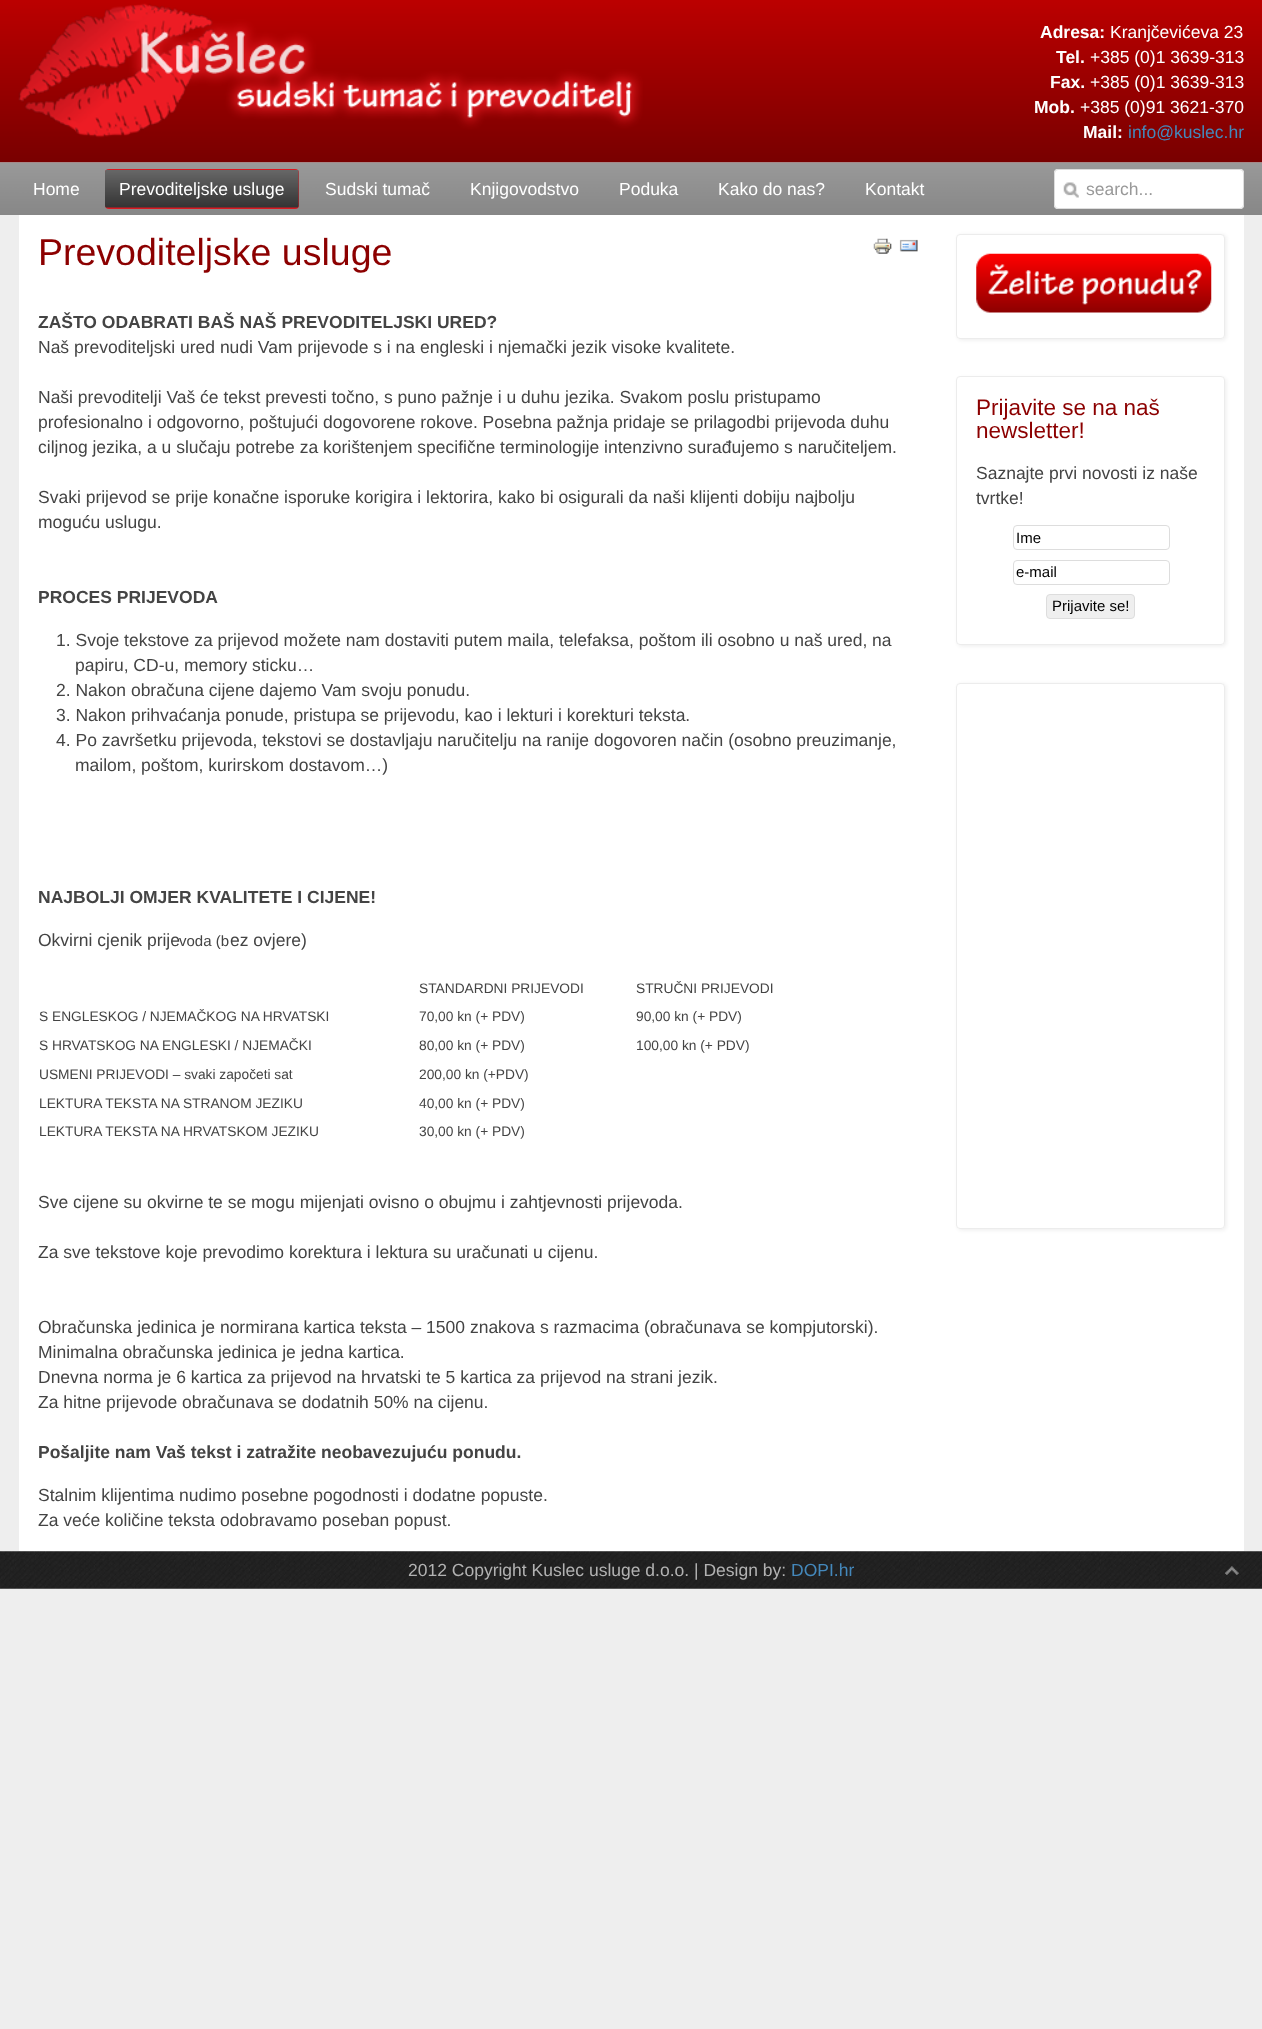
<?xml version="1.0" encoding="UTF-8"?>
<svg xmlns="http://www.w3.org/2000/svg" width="1262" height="2029">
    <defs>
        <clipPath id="clip1"><path d="M 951 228 H 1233 V 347 H 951 Z M 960 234 H 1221 C 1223 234 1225 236 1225 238 V 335 C 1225 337 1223 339 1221 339 H 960 C 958 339 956 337 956 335 V 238 C 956 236 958 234 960 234 Z" clip-rule="evenodd"/></clipPath>
        <filter id="blur1" x="-50%" y="-200%" width="200%" height="500%"><feGaussianBlur stdDeviation="2"/></filter>
        <clipPath id="clip2"><path d="M 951 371 H 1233 V 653 H 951 Z M 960 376 H 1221 C 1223 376 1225 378 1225 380 V 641 C 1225 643 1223 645 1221 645 H 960 C 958 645 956 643 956 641 V 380 C 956 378 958 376 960 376 Z" clip-rule="evenodd"/></clipPath>
        <clipPath id="clip3"><path d="M 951 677 H 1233 V 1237 H 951 Z M 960 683 H 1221 C 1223 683 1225 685 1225 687 V 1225 C 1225 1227 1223 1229 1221 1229 H 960 C 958 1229 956 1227 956 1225 V 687 C 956 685 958 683 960 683 Z" clip-rule="evenodd"/></clipPath>
    </defs>
    <rect width="100%" height="100%" fill="#EEEEEE"/>
    <image x="0" y="0" width="1262" height="163" href="img_01.png"/>
    <image x="18" y="3" width="625" height="135" href="img_02.png"/>
    <text x="1040" y="38" font-family="Liberation Sans" font-size="17.5" font-weight="700" fill="#FFFFFF">Adresa:</text>
    <text x="1110" y="38" font-family="Liberation Sans" font-size="17.5" fill="#FFFFFF">Kranjčevićeva 23</text>
    <text x="1056" y="63" font-family="Liberation Sans" font-size="17.5" font-weight="700" fill="#FFFFFF">Tel.</text>
    <text x="1090" y="63" font-family="Liberation Sans" font-size="17.5" fill="#FFFFFF">+385 (0)1 3639-313</text>
    <text x="1050" y="88" font-family="Liberation Sans" font-size="17.5" font-weight="700" fill="#FFFFFF">Fax.</text>
    <text x="1090" y="88" font-family="Liberation Sans" font-size="17.5" fill="#FFFFFF">+385 (0)1 3639-313</text>
    <text x="1034" y="113" font-family="Liberation Sans" font-size="17.5" font-weight="700" fill="#FFFFFF">Mob.</text>
    <text x="1080" y="113" font-family="Liberation Sans" font-size="17.5" fill="#FFFFFF">+385 (0)91 3621-370</text>
    <text x="1083" y="138" font-family="Liberation Sans" font-size="17.5" font-weight="700" fill="#FFFFFF">Mail:</text>
    <text x="1128" y="138" font-family="Liberation Sans" font-size="17.5" fill="#4488BB">info@kuslec.hr</text>
    <image x="0" y="162" width="1262" height="53" href="img_03.png"/>
    <text x="33" y="195" font-family="Liberation Sans" font-size="17.5" fill="#FFFFFF">Home</text>
    <rect x="105" y="169" width="194" height="40" rx="4" fill="#D91921"/>
    <image x="105" y="170" width="194" height="38" href="img_04.png"/>
    <text x="119" y="195" font-family="Liberation Sans" font-size="17.5" fill="#FFFFFF">Prevoditeljske usluge</text>
    <text x="325" y="195" font-family="Liberation Sans" font-size="17.5" fill="#FFFFFF">Sudski tumač</text>
    <text x="470" y="195" font-family="Liberation Sans" font-size="17.5" fill="#FFFFFF">Knjigovodstvo</text>
    <text x="619" y="195" font-family="Liberation Sans" font-size="17.5" fill="#FFFFFF">Poduka</text>
    <text x="718" y="195" font-family="Liberation Sans" font-size="17.5" fill="#FFFFFF">Kako do nas?</text>
    <text x="865" y="195" font-family="Liberation Sans" font-size="17.5" fill="#FFFFFF">Kontakt</text>
    <rect x="1054" y="169" width="190" height="40" rx="4" fill="#FFFFFF"/>
    <image x="1063" y="182" width="16" height="16" href="img_05.png"/>
    <rect x="1054.5" y="169.5" width="189" height="39" rx="3.5" fill="none" stroke="#DDDDDD"/>
    <text x="1086" y="195" font-family="Liberation Sans" font-size="17.5" fill="#999999">search...</text>
    <rect x="19" y="215" width="1225" height="1336" fill="#FFFFFF"/>
    <text x="38" y="265" font-family="Liberation Sans" font-size="37.5" fill="#8C0000">Prevoditeljske usluge</text>
    <image x="873" y="238" width="19" height="16" href="img_06.png"/>
    <image x="899" y="239" width="19" height="13" href="img_07.png"/>
    <text x="38" y="328" font-family="Liberation Sans" font-size="17.5" font-weight="700" fill="#444444">ZAŠTO ODABRATI BAŠ NAŠ PREVODITELJSKI URED?</text>
    <text x="38" y="353" font-family="Liberation Sans" font-size="17.5" fill="#444444">Naš prevoditeljski ured nudi Vam prijevode s i na engleski i njemački jezik visoke kvalitete.</text>
    <text font-family="Liberation Sans" font-size="17.5" fill="#444444">
        <tspan x="38" y="403">Naši prevoditelji Vaš će tekst prevesti točno, s puno pažnje i u duhu jezika. Svakom poslu pristupamo</tspan>
        <tspan x="38" y="428">profesionalno i odgovorno, poštujući dogovorene rokove. Posebna pažnja pridaje se prilagodbi prijevoda duhu</tspan>
        <tspan x="38" y="453">ciljnog jezika, a u slučaju potrebe za korištenjem specifične terminologije intenzivno surađujemo s naručiteljem.</tspan>
    </text>
    <text font-family="Liberation Sans" font-size="17.5" fill="#444444">
        <tspan x="38" y="503">Svaki prijevod se prije konačne isporuke korigira i lektorira, kako bi osigurali da naši klijenti dobiju najbolju</tspan>
        <tspan x="38" y="528">moguću uslugu.</tspan>
    </text>
    <text x="38" y="603" font-family="Liberation Sans" font-size="17.5" font-weight="700" fill="#444444">PROCES PRIJEVODA</text>
    <text x="56" y="646" font-family="Liberation Sans" font-size="17.5" fill="#444444">1. Svoje tekstove za prijevod možete nam dostaviti putem maila, telefaksa, poštom ili osobno u naš ured, na</text>
    <text x="75" y="671" font-family="Liberation Sans" font-size="17.5" fill="#444444">papiru, CD-u, memory sticku…</text>
    <text font-family="Liberation Sans" font-size="17.5" fill="#444444">
        <tspan x="56" y="696">2. Nakon obračuna cijene dajemo Vam svoju ponudu.</tspan>
        <tspan x="56" y="721">3. Nakon prihvaćanja ponude, pristupa se prijevodu, kao i lekturi i korekturi teksta.</tspan>
        <tspan x="56" y="746">4. Po završetku prijevoda, tekstovi se dostavljaju naručitelju na ranije dogovoren način (osobno preuzimanje,</tspan>
    </text>
    <text x="75" y="771" font-family="Liberation Sans" font-size="17.5" fill="#444444">mailom, poštom, kurirskom dostavom…)</text>
    <text x="38" y="903" font-family="Liberation Sans" font-size="17.5" font-weight="700" fill="#444444">NAJBOLJI OMJER KVALITETE I CIJENE!</text>
    <text x="38" y="946" font-family="Liberation Sans" font-size="17.5" fill="#444444">Okvirni cjenik prije</text>
    <text x="179" y="946" font-family="Liberation Sans" font-size="15" fill="#444444">voda (b</text>
    <text x="230" y="946" font-family="Liberation Sans" font-size="17.5" fill="#444444">ez ovjere)</text>
    <text x="419" y="993" font-family="Liberation Sans" font-size="13.75" fill="#444444">STANDARDNI PRIJEVODI</text>
    <text x="636" y="993" font-family="Liberation Sans" font-size="13.75" fill="#444444">STRUČNI PRIJEVODI</text>
    <text x="39" y="1021" font-family="Liberation Sans" font-size="13.75" fill="#444444">S ENGLESKOG / NJEMAČKOG NA HRVATSKI</text>
    <text x="419" y="1021" font-family="Liberation Sans" font-size="13.75" fill="#444444">70,00 kn (+ PDV)</text>
    <text x="636" y="1021" font-family="Liberation Sans" font-size="13.75" fill="#444444">90,00 kn (+ PDV)</text>
    <text x="39" y="1050" font-family="Liberation Sans" font-size="13.75" fill="#444444">S HRVATSKOG NA ENGLESKI / NJEMAČKI</text>
    <text x="419" y="1050" font-family="Liberation Sans" font-size="13.75" fill="#444444">80,00 kn (+ PDV)</text>
    <text x="636" y="1050" font-family="Liberation Sans" font-size="13.75" fill="#444444">100,00 kn (+ PDV)</text>
    <text x="39" y="1079" font-family="Liberation Sans" font-size="13.75" fill="#444444">USMENI PRIJEVODI – svaki započeti sat</text>
    <text x="419" y="1079" font-family="Liberation Sans" font-size="13.75" fill="#444444">200,00 kn (+PDV)</text>
    <text x="39" y="1108" font-family="Liberation Sans" font-size="13.75" fill="#444444">LEKTURA TEKSTA NA STRANOM JEZIKU</text>
    <text x="419" y="1108" font-family="Liberation Sans" font-size="13.75" fill="#444444">40,00 kn (+ PDV)</text>
    <text x="39" y="1136" font-family="Liberation Sans" font-size="13.75" fill="#444444">LEKTURA TEKSTA NA HRVATSKOM JEZIKU</text>
    <text x="419" y="1136" font-family="Liberation Sans" font-size="13.75" fill="#444444">30,00 kn (+ PDV)</text>
    <text x="38" y="1208" font-family="Liberation Sans" font-size="17.5" fill="#444444">Sve cijene su okvirne te se mogu mijenjati ovisno o obujmu i zahtjevnosti prijevoda.</text>
    <text x="38" y="1258" font-family="Liberation Sans" font-size="17.5" fill="#444444">Za sve tekstove koje prevodimo korektura i lektura su uračunati u cijenu.</text>
    <text font-family="Liberation Sans" font-size="17.5" fill="#444444">
        <tspan x="38" y="1333">Obračunska jedinica je normirana kartica teksta – 1500 znakova s razmacima (obračunava se kompjutorski).</tspan>
        <tspan x="38" y="1358">Minimalna obračunska jedinica je jedna kartica.</tspan>
        <tspan x="38" y="1383">Dnevna norma je 6 kartica za prijevod na hrvatski te 5 kartica za prijevod na strani jezik.</tspan>
        <tspan x="38" y="1408">Za hitne prijevode obračunava se dodatnih 50% na cijenu.</tspan>
    </text>
    <text x="38" y="1458" font-family="Liberation Sans" font-size="17.5" font-weight="700" fill="#444444">Pošaljite nam Vaš tekst i zatražite neobavezujuću ponudu.</text>
    <text font-family="Liberation Sans" font-size="17.5" fill="#444444">
        <tspan x="38" y="1501">Stalnim klijentima nudimo posebne pogodnosti i dodatne popuste.</tspan>
        <tspan x="38" y="1526">Za veće količine teksta odobravamo poseban popust.</tspan>
    </text>
    <g clip-path="url(#clip1)">
        <rect x="958" y="235" width="268" height="105" rx="4" fill="#ECECEC" filter="url(#blur1)"/>
    </g>
    <rect x="956.5" y="234.5" width="268" height="104" rx="3.5" fill="none" stroke="#ECECEC"/>
    <image x="976" y="253" width="236" height="60" href="img_08.png"/>
    <g clip-path="url(#clip2)">
        <rect x="958" y="378" width="268" height="268" rx="4" fill="#ECECEC" filter="url(#blur1)"/>
    </g>
    <rect x="956.5" y="376.5" width="268" height="268" rx="3.5" fill="none" stroke="#ECECEC"/>
    <text font-family="Liberation Sans" font-size="22.5" fill="#8C0000">
        <tspan x="976" y="415">Prijavite se na naš</tspan>
        <tspan x="976" y="438">newsletter!</tspan>
    </text>
    <text font-family="Liberation Sans" font-size="17.5" fill="#444444">
        <tspan x="976" y="479">Saznajte prvi novosti iz naše</tspan>
        <tspan x="976" y="504">tvrtke!</tspan>
    </text>
    <rect x="1013.5" y="525.5" width="156" height="24" rx="3.5" fill="none" stroke="#DDDDDD"/>
    <text x="1016" y="543" font-family="Liberation Sans" font-size="15" fill="#000000">Ime</text>
    <rect x="1013.5" y="560.5" width="156" height="24" rx="3.5" fill="none" stroke="#DDDDDD"/>
    <text x="1016" y="577" font-family="Liberation Sans" font-size="15" fill="#000000">e-mail</text>
    <rect x="1046.5" y="594.5" width="88" height="24" rx="3.5" fill="#EFEFEF" stroke="#DDDDDD"/>
    <text x="1052" y="611" font-family="Liberation Sans" font-size="15" fill="#000000">Prijavite se!</text>
    <g clip-path="url(#clip3)">
        <rect x="958" y="684" width="268" height="546" rx="4" fill="#ECECEC" filter="url(#blur1)"/>
    </g>
    <rect x="956.5" y="683.5" width="268" height="545" rx="3.5" fill="none" stroke="#ECECEC"/>
    <image x="0" y="1551" width="1262" height="38" href="img_09.png"/>
    <text x="408" y="1576" font-family="Liberation Sans" font-size="17.5" fill="#B2B2B2">2012 Copyright Kuslec usluge d.o.o. | Design by:</text>
    <text x="791" y="1576" font-family="Liberation Sans" font-size="17.5" fill="#4488BB">DOPI.hr</text>
    <image x="1225" y="1566" width="14" height="9" href="img_10.png"/>
</svg>
